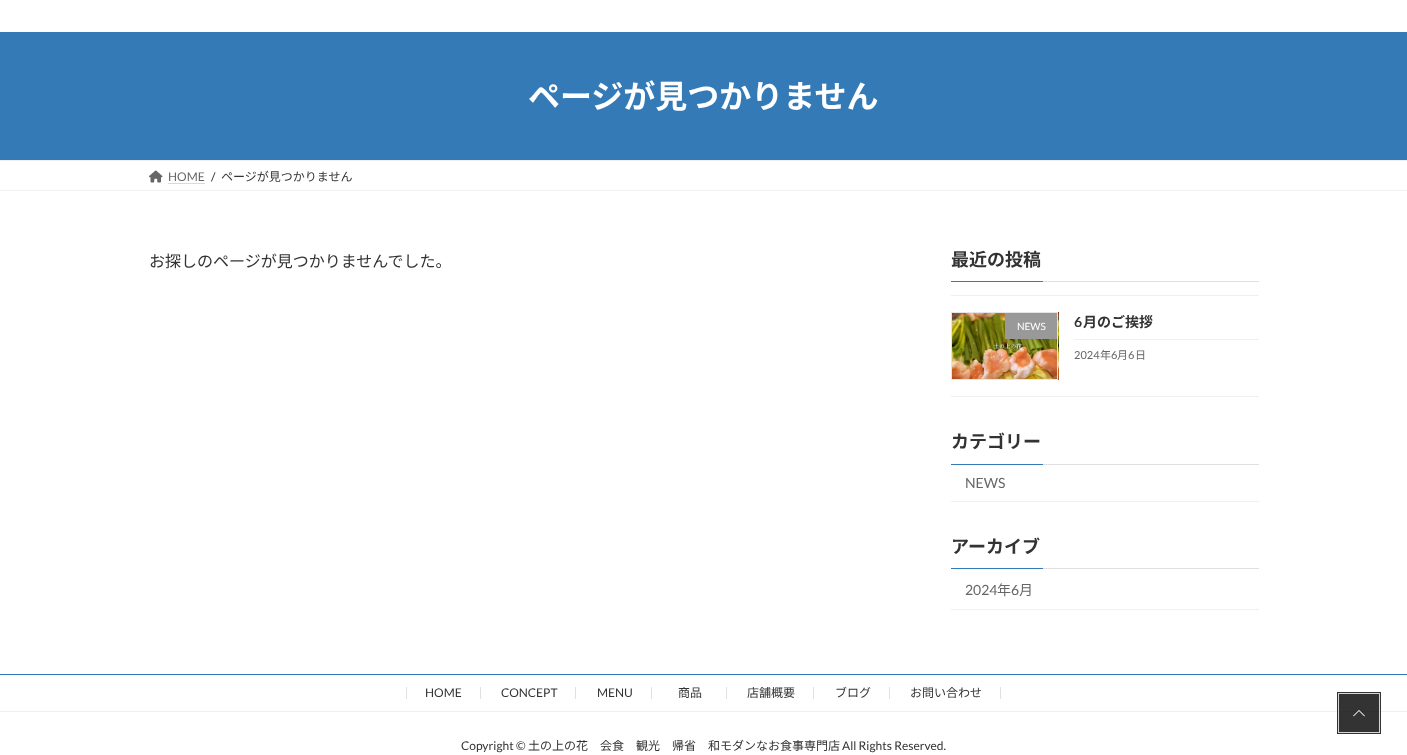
<?xml version="1.0" encoding="UTF-8"?>
<svg xmlns="http://www.w3.org/2000/svg" width="1407" height="755">
    <rect width="100%" height="100%" fill="#FFFFFF"/>
    <rect x="1339" y="694" width="40" height="38" fill="#333333"/>
    <rect x="0" y="32" width="1407" height="128" fill="#337AB7"/>
    <text x="528" y="108" font-family="Noto Sans JP" font-size="32" font-weight="700" fill="#FFFFFF">ページが見つかりません</text>
    <rect x="0" y="160" width="1407" height="1" fill="#F0F0F0"/>
    <rect x="0" y="190" width="1407" height="1" fill="#F0F0F0"/>
    <image x="149" y="170" width="14" height="13" href="img_01.png"/>
    <text x="168" y="181" font-family="Lato" font-size="12" fill="#666666">HOME</text>
    <path d="M 168.5 183.5 H 205" fill="none" stroke="#B3B3B3" stroke-dasharray="1 1"/>
    <text x="211" y="181" font-family="Lato" font-size="12" fill="#333333">/</text>
    <text x="221" y="181" font-family="Noto Sans JP" font-size="12" fill="#333333">ページが見つかりません</text>
    <text x="149" y="267" font-family="Noto Sans JP" font-size="16" fill="#333333">お探しのページが見つかりませんでした。</text>
    <rect x="1043" y="281" width="216" height="1" fill="#E0E0E0"/>
    <text x="951" y="266" font-family="Noto Sans JP" font-size="18" font-weight="700" fill="#333333">最近の投稿</text>
    <rect x="951" y="281" width="92" height="1" fill="#337AB7"/>
    <rect x="951" y="295" width="308" height="1" fill="#F0F0F0"/>
    <rect x="951" y="396" width="308" height="1" fill="#F0F0F0"/>
    <image x="952" y="312" width="107" height="68" href="img_02.png"/>
    <rect x="951.5" y="312.5" width="106" height="67" fill="none" stroke="#E5E5E5"/>
    <rect x="1005" y="313" width="52" height="26" fill="#999999"/>
    <text x="1017" y="330" font-family="Lato" font-size="10" fill="#FFFFFF">NEWS</text>
    <rect x="1074" y="339" width="185" height="1" fill="#F0F0F0"/>
    <text x="1074" y="327" font-family="Lato" font-size="14" font-weight="700" fill="#333333">6</text>
    <text x="1083" y="327" font-family="Noto Sans JP" font-size="14" font-weight="700" fill="#333333">月のご挨拶</text>
    <text x="1074" y="359" font-family="Lato" font-size="11" fill="#666666">2024</text>
    <text x="1100" y="359" font-family="Noto Sans JP" font-size="11" fill="#666666">年</text>
    <text x="1111" y="359" font-family="Lato" font-size="11" fill="#666666">6</text>
    <text x="1117" y="359" font-family="Noto Sans JP" font-size="11" fill="#666666">月</text>
    <text x="1128" y="359" font-family="Lato" font-size="11" fill="#666666">6</text>
    <text x="1135" y="359" font-family="Noto Sans JP" font-size="11" fill="#666666">日</text>
    <rect x="1043" y="464" width="216" height="1" fill="#E0E0E0"/>
    <text x="951" y="448" font-family="Noto Sans JP" font-size="18" font-weight="700" fill="#333333">カテゴリー</text>
    <rect x="951" y="464" width="92" height="1" fill="#337AB7"/>
    <rect x="951" y="501" width="308" height="1" fill="#F0F0F0"/>
    <text x="965" y="488" font-family="Lato" font-size="14" fill="#666666">NEWS</text>
    <rect x="1043" y="568" width="216" height="1" fill="#E0E0E0"/>
    <text x="951" y="553" font-family="Noto Sans JP" font-size="18" font-weight="700" fill="#333333">アーカイブ</text>
    <rect x="951" y="568" width="92" height="1" fill="#337AB7"/>
    <rect x="951" y="609" width="308" height="1" fill="#F0F0F0"/>
    <text x="965" y="595" font-family="Lato" font-size="14" fill="#666666">2024</text>
    <text x="997" y="595" font-family="Noto Sans JP" font-size="14" fill="#666666">年</text>
    <text x="1011" y="595" font-family="Lato" font-size="14" fill="#666666">6</text>
    <text x="1019" y="595" font-family="Noto Sans JP" font-size="14" fill="#666666">月</text>
    <rect x="0" y="674" width="1407" height="1" fill="#337AB7"/>
    <rect x="0" y="711" width="1407" height="1" fill="#F0F0F0"/>
    <rect x="1339" y="711" width="40" height="1" fill="#303030"/>
    <rect x="480" y="687" width="1" height="12" fill="#E0E0E0"/>
    <rect x="406" y="687" width="1" height="12" fill="#E0E0E0"/>
    <text x="425" y="697" font-family="Lato" font-size="12" fill="#333333">HOME</text>
    <rect x="575" y="687" width="1" height="12" fill="#E0E0E0"/>
    <text x="501" y="697" font-family="Lato" font-size="12" fill="#333333">CONCEPT</text>
    <rect x="651" y="687" width="1" height="12" fill="#E0E0E0"/>
    <text x="597" y="697" font-family="Lato" font-size="12" fill="#333333">MENU</text>
    <rect x="726" y="687" width="1" height="12" fill="#E0E0E0"/>
    <text x="678" y="697" font-family="Noto Sans JP" font-size="12" fill="#333333">商品</text>
    <rect x="813" y="687" width="1" height="12" fill="#E0E0E0"/>
    <text x="747" y="697" font-family="Noto Sans JP" font-size="12" fill="#333333">店舗概要</text>
    <rect x="889" y="687" width="1" height="12" fill="#E0E0E0"/>
    <text x="835" y="697" font-family="Noto Sans JP" font-size="12" fill="#333333">ブログ</text>
    <rect x="1000" y="687" width="1" height="12" fill="#E0E0E0"/>
    <text x="910" y="697" font-family="Noto Sans JP" font-size="12" fill="#333333">お問い合わせ</text>
    <text x="461" y="750" font-family="Lato" font-size="12" fill="#333333">Copyright ©</text>
    <text x="528" y="750" font-family="Noto Sans JP" font-size="12" fill="#333333">土の上の花　会食　観光　帰省　和モダンなお食事専門店</text>
    <text x="842" y="750" font-family="Lato" font-size="12" fill="#333333">All Rights Reserved.</text>
    <rect x="1338" y="693" width="42" height="40" fill="none" stroke="#000000" stroke-opacity="0.8" stroke-width="2"/>
    <rect x="1338.5" y="693.5" width="41" height="39" fill="none" stroke="#FFFFFF" stroke-opacity="0.8"/>
    <image x="1353" y="710" width="12" height="7" href="img_03.png"/>
</svg>
